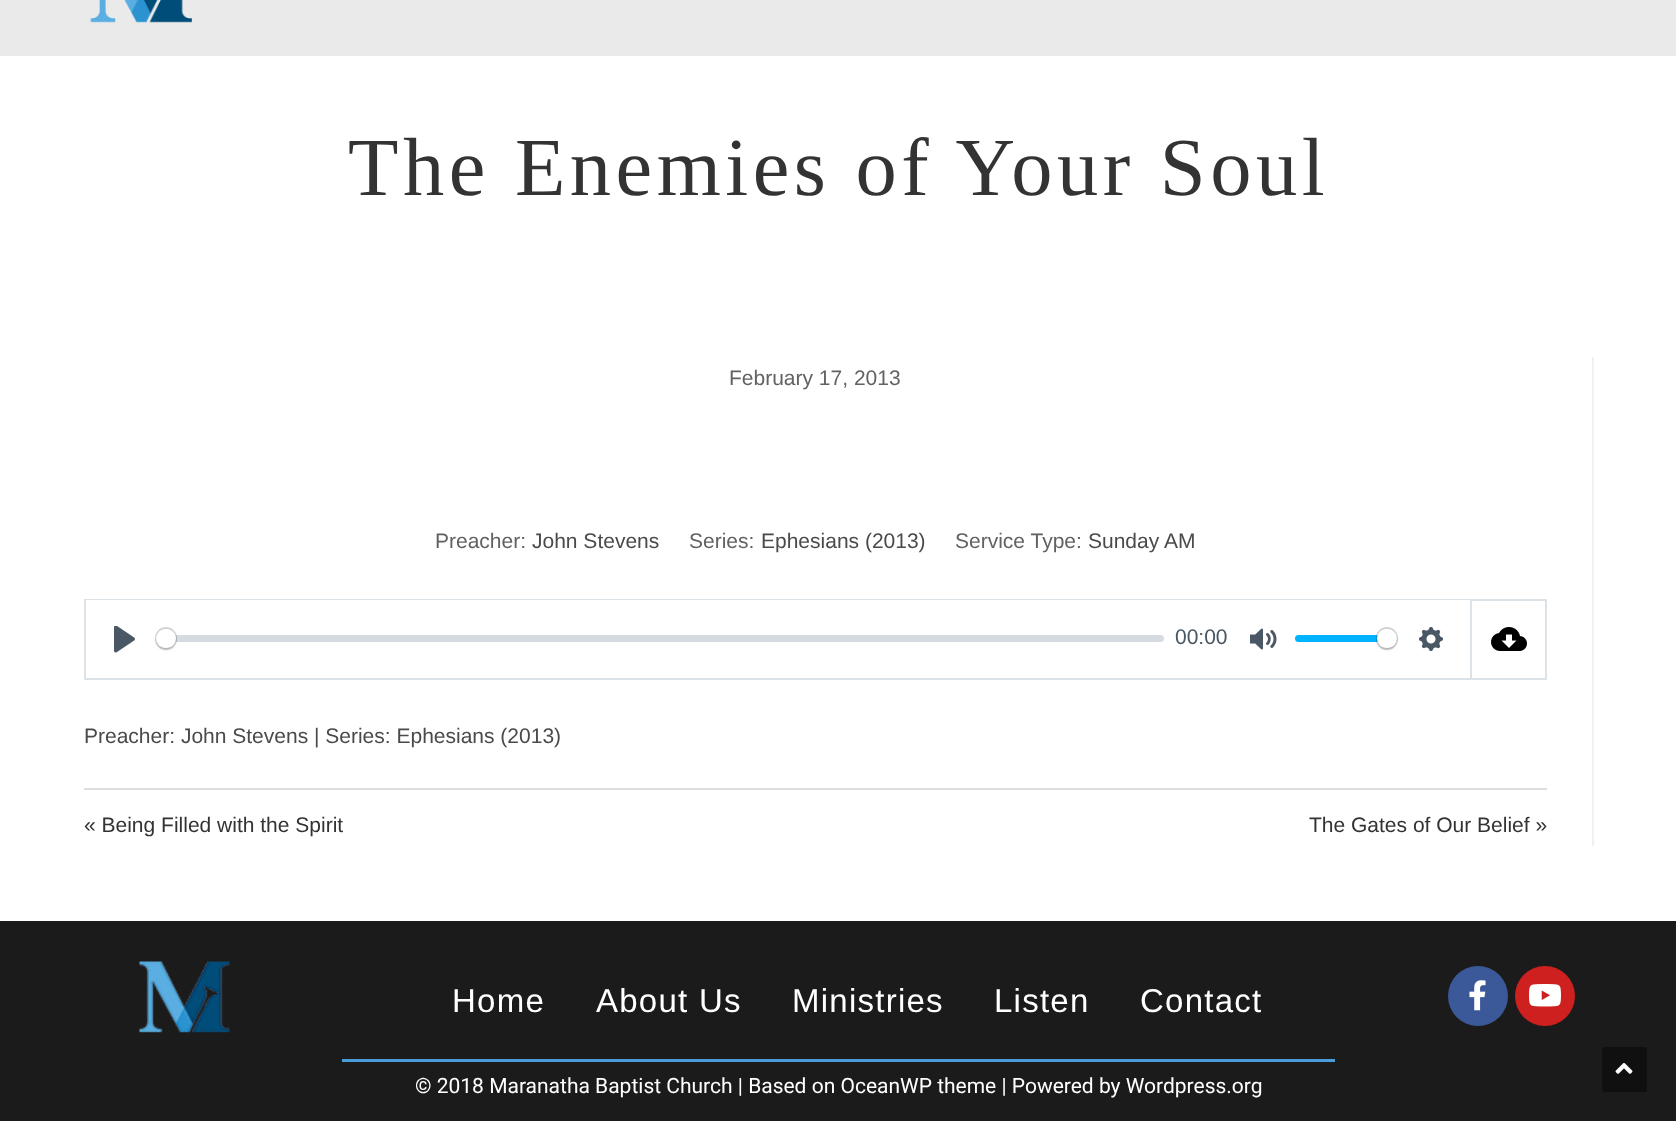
<?xml version="1.0" encoding="UTF-8"?>
<svg xmlns="http://www.w3.org/2000/svg" width="1676" height="1121">
    <defs>
        <filter id="blur1" x="-50%" y="-200%" width="200%" height="500%"><feGaussianBlur stdDeviation="1"/></filter>
    </defs>
    <rect width="100%" height="100%" fill="#FFFFFF"/>
    <rect x="0" y="0" width="1676" height="56" fill="#EAEAEA"/>
    <image x="90" y="0" width="102" height="23" href="img_01.png"/>
    <text x="348" y="195" font-family="Liberation Serif" font-size="82.5" letter-spacing="4.5" fill="#333333">The Enemies of Your Soul</text>
    <rect x="1592" y="357" width="2" height="489" fill="#F1F1F1"/>
    <text x="729" y="385" font-family="Liberation Sans" font-size="21" fill="#626262">February 17, 2013</text>
    <text x="435" y="548" font-family="Liberation Sans" font-size="21" fill="#626262">Preacher:</text>
    <text x="532" y="548" font-family="Liberation Sans" font-size="21" fill="#4A4A4A">John Stevens</text>
    <text x="689" y="548" font-family="Liberation Sans" font-size="21" fill="#626262">Series:</text>
    <text x="761" y="548" font-family="Liberation Sans" font-size="21" fill="#4A4A4A">Ephesians (2013)</text>
    <text x="955" y="548" font-family="Liberation Sans" font-size="21" fill="#626262">Service Type:</text>
    <text x="1088" y="548" font-family="Liberation Sans" font-size="21" fill="#4A4A4A">Sunday AM</text>
    <rect x="85" y="600" width="1386" height="79" fill="none" stroke="#DBE3E8" stroke-width="2"/>
    <rect x="86" y="600" width="1384" height="1" fill="#FFFFFF"/>
    <image x="114" y="626" width="21" height="27" href="img_02.png"/>
    <rect x="156" y="635" width="1008" height="7" rx="3.5" fill="#C1C9D1" fill-opacity="0.66"/>
    <rect x="156" y="628" width="20" height="21" rx="10" fill="none" stroke="#23292F" stroke-opacity="0.2" stroke-width="2"/>
    <rect x="156" y="630" width="20" height="20" rx="10" fill="#000000" fill-opacity="0.15" filter="url(#blur1)"/>
    <rect x="156" y="629" width="20" height="19" rx="9.5" fill="#FFFFFF"/>
    <text x="1175" y="644" font-family="Liberation Sans" font-size="21" fill="#4A5764">00:00</text>
    <image x="1250" y="628" width="27" height="22" href="img_03.png"/>
    <rect x="1295" y="635" width="102" height="7" rx="3.5" fill="#00B3FF"/>
    <rect x="1377" y="628" width="20" height="21" rx="10" fill="none" stroke="#23292F" stroke-opacity="0.2" stroke-width="2"/>
    <rect x="1377" y="630" width="20" height="20" rx="10" fill="#000000" fill-opacity="0.15" filter="url(#blur1)"/>
    <rect x="1377" y="629" width="20" height="19" rx="9.5" fill="#FFFFFF"/>
    <image x="1419" y="627" width="24" height="24" href="img_04.png"/>
    <rect x="1472" y="599" width="75" height="2" fill="#DBE3E8"/>
    <rect x="1545" y="599" width="2" height="81" fill="#DBE3E8"/>
    <rect x="1472" y="678" width="75" height="2" fill="#DBE3E8"/>
    <image x="1491" y="627" width="36" height="24" href="img_05.png"/>
    <text x="84" y="743" font-family="Liberation Sans" font-size="21" fill="#4A4A4A">Preacher: John Stevens | Series: Ephesians (2013)</text>
    <rect x="84" y="788" width="1463" height="2" fill="#DDDDDD"/>
    <text x="84" y="832" font-family="Liberation Sans" font-size="21" fill="#333333">« Being Filled with the Spirit</text>
    <text x="1309" y="832" font-family="Liberation Sans" font-size="21" fill="#333333">The Gates of Our Belief »</text>
    <rect x="0" y="921" width="1676" height="200" fill="#1B1B1B"/>
    <image x="139" y="961" width="91" height="72" href="img_06.png"/>
    <text x="452" y="1012" font-family="Liberation Sans" font-size="33" letter-spacing="1.25" fill="#FFFFFF">Home</text>
    <text x="596" y="1012" font-family="Liberation Sans" font-size="33" letter-spacing="1.25" fill="#FFFFFF">About Us</text>
    <text x="792" y="1012" font-family="Liberation Sans" font-size="33" letter-spacing="1.25" fill="#FFFFFF">Ministries</text>
    <text x="994" y="1012" font-family="Liberation Sans" font-size="33" letter-spacing="1.25" fill="#FFFFFF">Listen</text>
    <text x="1140" y="1012" font-family="Liberation Sans" font-size="33" letter-spacing="1.25" fill="#FFFFFF">Contact</text>
    <circle cx="1478" cy="996" r="30" fill="#3B5998"/>
    <image x="1469" y="980" width="17" height="31" href="img_07.png"/>
    <circle cx="1545" cy="996" r="30" fill="#CD201F"/>
    <image x="1529" y="984" width="32" height="23" href="img_08.png"/>
    <rect x="342" y="1059" width="993" height="3" fill="#4A9DD8"/>
    <text x="415" y="1093" font-family="Roboto" font-size="21" fill="#FFFFFF">© 2018 Maranatha Baptist Church | Based on OceanWP theme | Powered by Wordpress.org</text>
    <rect x="1602" y="1047" width="45" height="45" rx="3" fill="#101010"/>
    <image x="1615" y="1063" width="18" height="11" href="img_09.png"/>
</svg>
